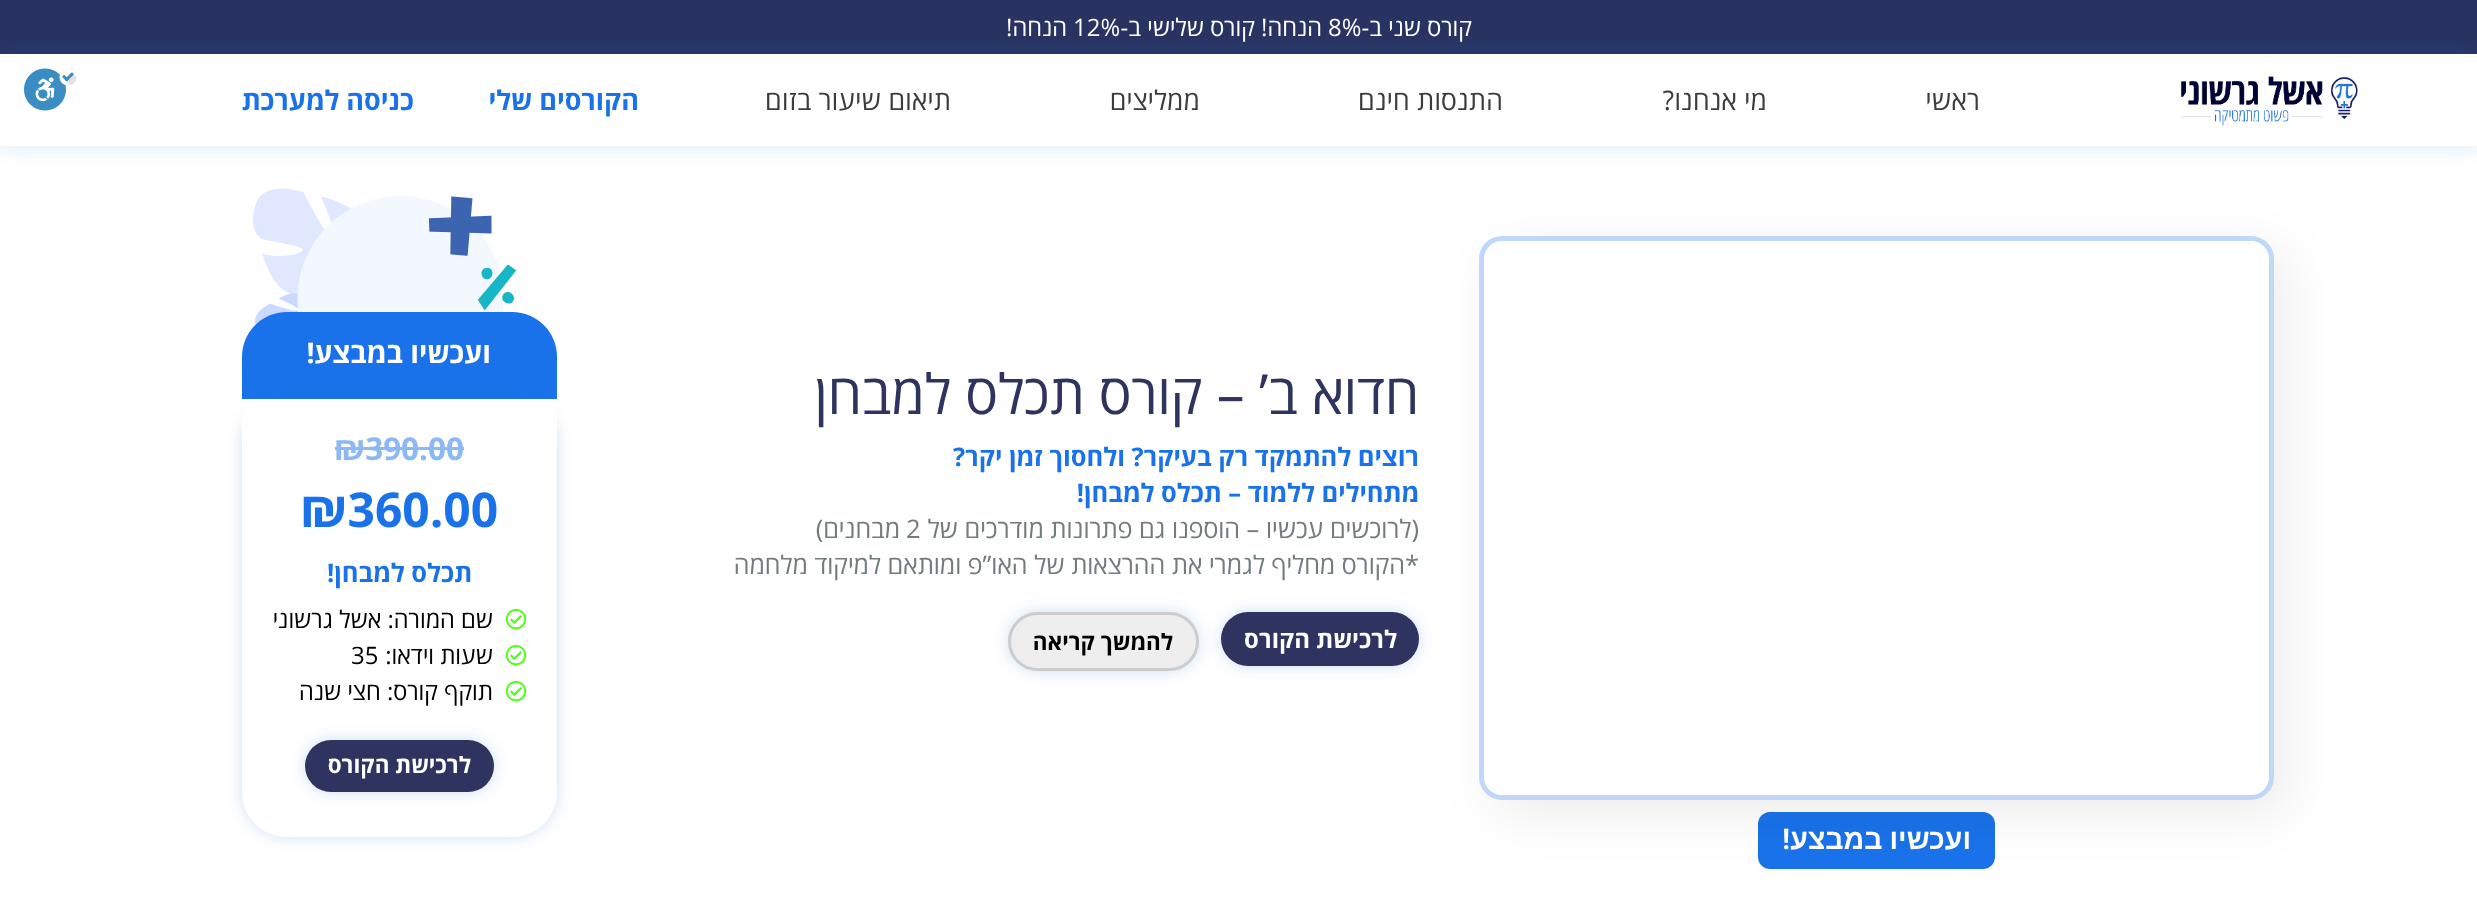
<?xml version="1.0" encoding="UTF-8"?>
<svg xmlns="http://www.w3.org/2000/svg" width="2477" height="923">
    <defs>
        <filter id="blur1" x="-50%" y="-200%" width="200%" height="500%"><feGaussianBlur stdDeviation="11"/></filter>
        <filter id="blur2" x="-50%" y="-200%" width="200%" height="500%"><feGaussianBlur stdDeviation="7.5"/></filter>
        <clipPath id="clip1"><path d="M 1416 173 H 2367 V 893 H 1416 Z M 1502 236 H 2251 C 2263.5 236 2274 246.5 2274 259 V 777 C 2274 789.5 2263.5 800 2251 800 H 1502 C 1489.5 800 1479 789.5 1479 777 V 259 C 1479 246.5 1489.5 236 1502 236 Z" clip-rule="evenodd"/></clipPath>
        <filter id="blur3" x="-50%" y="-200%" width="200%" height="500%"><feGaussianBlur stdDeviation="25.5"/></filter>
    </defs>
    <rect width="100%" height="100%" fill="#FFFFFF"/>
    <rect x="0" y="0" width="2477" height="54" fill="#293361"/>
    <text x="1472" y="36" font-family="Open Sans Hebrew" font-size="24" direction="rtl" fill="#FFFFFF">קורס שני ב-</text>
    <text x="1328" y="36" font-family="Open Sans Hebrew" font-size="24" fill="#FFFFFF">8%</text>
    <text x="1322" y="36" font-family="Open Sans Hebrew" font-size="24" direction="rtl" fill="#FFFFFF">הנחה! קורס שלישי ב-</text>
    <text x="1073" y="36" font-family="Open Sans Hebrew" font-size="24" fill="#FFFFFF">12%</text>
    <text x="1067" y="36" font-family="Open Sans Hebrew" font-size="24" direction="rtl" fill="#FFFFFF">הנחה!</text>
    <rect x="0" y="54" width="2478" height="92" fill="#1972EA" fill-opacity="0.18" filter="url(#blur1)"/>
    <rect x="0" y="54" width="2477" height="92" fill="#FFFFFF"/>
    <image x="2180" y="76" width="178" height="50" href="img_01.png"/>
    <text x="1980" y="110" font-family="Open Sans Hebrew" font-size="27" letter-spacing="0.25" direction="rtl" fill="#3C3C3C">ראשי</text>
    <text x="1767" y="110" font-family="Open Sans Hebrew" font-size="27" letter-spacing="0.25" direction="rtl" fill="#3C3C3C">מי אנחנו?</text>
    <text x="1503" y="110" font-family="Open Sans Hebrew" font-size="27" letter-spacing="0.25" direction="rtl" fill="#3C3C3C">התנסות חינם</text>
    <text x="1200" y="110" font-family="Open Sans Hebrew" font-size="27" letter-spacing="0.25" direction="rtl" fill="#3C3C3C">ממליצים</text>
    <text x="951" y="110" font-family="Open Sans Hebrew" font-size="27" letter-spacing="0.25" direction="rtl" fill="#3C3C3C">תיאום שיעור בזום</text>
    <text x="639" y="110" font-family="Open Sans Hebrew" font-size="27" font-weight="700" direction="rtl" fill="#1972EA">הקורסים שלי</text>
    <text x="414" y="110" font-family="Open Sans Hebrew" font-size="27" font-weight="700" direction="rtl" fill="#1972EA">כניסה למערכת</text>
    <image x="24" y="68" width="53" height="43" href="img_02.png"/>
    <text x="1419" y="414" font-family="Open Sans Hebrew" font-size="55.5" direction="rtl" fill="#2E345F">חדוא ב’ – קורס תכלס למבחן</text>
    <text x="1419" y="466" font-family="Open Sans Hebrew" font-size="25.5" font-weight="700" direction="rtl" fill="#1972EA">רוצים להתמקד רק בעיקר?</text>
    <text x="1125" y="466" font-family="Open Sans Hebrew" font-size="25.5" font-weight="700" direction="rtl" fill="#1972EA">ולחסוך זמן יקר?</text>
    <text x="1419" y="502" font-family="Open Sans Hebrew" font-size="25.5" font-weight="700" direction="rtl" fill="#1972EA">מתחילים ללמוד – תכלס למבחן!</text>
    <text x="1419" y="538" font-family="Open Sans Hebrew" font-size="25.5" direction="rtl" fill="#737B7D">(לרוכשים עכשיו – הוספנו גם פתרונות מודרכים של</text>
    <text x="906" y="538" font-family="Open Sans Hebrew" font-size="25.5" fill="#737B7D">2</text>
    <text x="900" y="538" font-family="Open Sans Hebrew" font-size="25.5" direction="rtl" fill="#737B7D">מבחנים)</text>
    <text x="1419" y="574" font-family="Open Sans Hebrew" font-size="25.5" direction="rtl" fill="#737B7D">*הקורס מחליף לגמרי את ההרצאות של האו”פ ומותאם למיקוד מלחמה</text>
    <rect x="1221" y="612" width="198" height="54" rx="27" fill="#006ACD" fill-opacity="0.2" filter="url(#blur2)"/>
    <rect x="1221" y="612" width="198" height="54" rx="27" fill="#2E345F"/>
    <text x="1397" y="648" font-family="Open Sans Hebrew" font-size="24" font-weight="700" direction="rtl" fill="#FFFFFF">לרכישת הקורס</text>
    <rect x="1008" y="612" width="191" height="59" rx="29.5" fill="#006ACD" fill-opacity="0.2" filter="url(#blur2)"/>
    <rect x="1009.5" y="613.5" width="188" height="56" rx="28" fill="#EEEEEE" stroke="#CCCCCC" stroke-width="3"/>
    <text x="1173" y="650" font-family="Open Sans Hebrew" font-size="22.5" font-weight="700" direction="rtl" fill="#000000">להמשך קריאה</text>
    <rect x="1758" y="812" width="237" height="57" rx="12" fill="#1972EA"/>
    <g clip-path="url(#clip1)">
        <rect x="1494" y="251" width="795" height="564" rx="23" fill="#000000" fill-opacity="0.07" filter="url(#blur3)"/>
    </g>
    <rect x="1481.5" y="238.5" width="790" height="559" rx="20.5" fill="none" stroke="#1972EA" stroke-opacity="0.28" stroke-width="5"/>
    <text x="1971" y="849" word-spacing="-1" font-family="Liberation Sans" font-size="28.5" font-weight="700" direction="rtl" fill="#FFFFFF">ועכשיו במבצע</text>
    <text x="1790" y="849" font-family="Roboto" font-size="28.5" font-weight="700" direction="rtl" fill="#FFFFFF">!</text>
    <image x="253" y="188" width="264" height="138" href="img_03.png"/>
    <path d="M 287 312 H 512 C 537 312 557 332 557 357 V 399 H 242 V 357 C 242 332 262 312 287 312 Z" fill="#1972EA"/>
    <text x="491" y="363" font-family="Open Sans Hebrew" font-size="28.5" font-weight="700" direction="rtl" fill="#FFFFFF">ועכשיו במבצע!</text>
    <rect x="242" y="399" width="315" height="438" rx="45" fill="#006ACD" fill-opacity="0.2" filter="url(#blur2)"/>
    <path d="M 242 399 H 557 V 792 C 557 817 537 837 512 837 H 287 C 262 837 242 817 242 792 Z" fill="#FFFFFF"/>
    <text x="334" y="460" font-family="Open Sans Hebrew" font-size="31.5" font-weight="700" fill="#8CB9F5">₪390.00</text>
    <rect x="335" y="447" width="129" height="3" fill="#8CB9F5"/>
    <text x="300" y="527" font-family="Open Sans Hebrew" font-size="48" font-weight="700" fill="#1972EA">₪360.00</text>
    <text x="472" y="582" font-family="Open Sans Hebrew" font-size="25.5" font-weight="700" direction="rtl" fill="#1972EA">תכלס למבחן!</text>
    <image x="505" y="609" width="22" height="21" href="img_04.png"/>
    <text x="493" y="628" font-family="Open Sans Hebrew" font-size="24" direction="rtl" fill="#000000">שם המורה: אשל גרשוני</text>
    <image x="505" y="645" width="22" height="21" href="img_04.png"/>
    <text x="493" y="664" font-family="Open Sans Hebrew" font-size="24" direction="rtl" fill="#000000">שעות וידאו:</text>
    <text x="351" y="664" font-family="Open Sans Hebrew" font-size="24" fill="#000000">35</text>
    <image x="505" y="681" width="22" height="21" href="img_04.png"/>
    <text x="493" y="700" font-family="Open Sans Hebrew" font-size="24" direction="rtl" fill="#000000">תוקף קורס: חצי שנה</text>
    <rect x="305" y="740" width="189" height="52" rx="26" fill="#006ACD" fill-opacity="0.2" filter="url(#blur2)"/>
    <rect x="305" y="740" width="189" height="52" rx="26" fill="#2E345F"/>
    <text x="471" y="773" font-family="Open Sans Hebrew" font-size="22.5" font-weight="700" direction="rtl" fill="#FFFFFF">לרכישת הקורס</text>
</svg>
